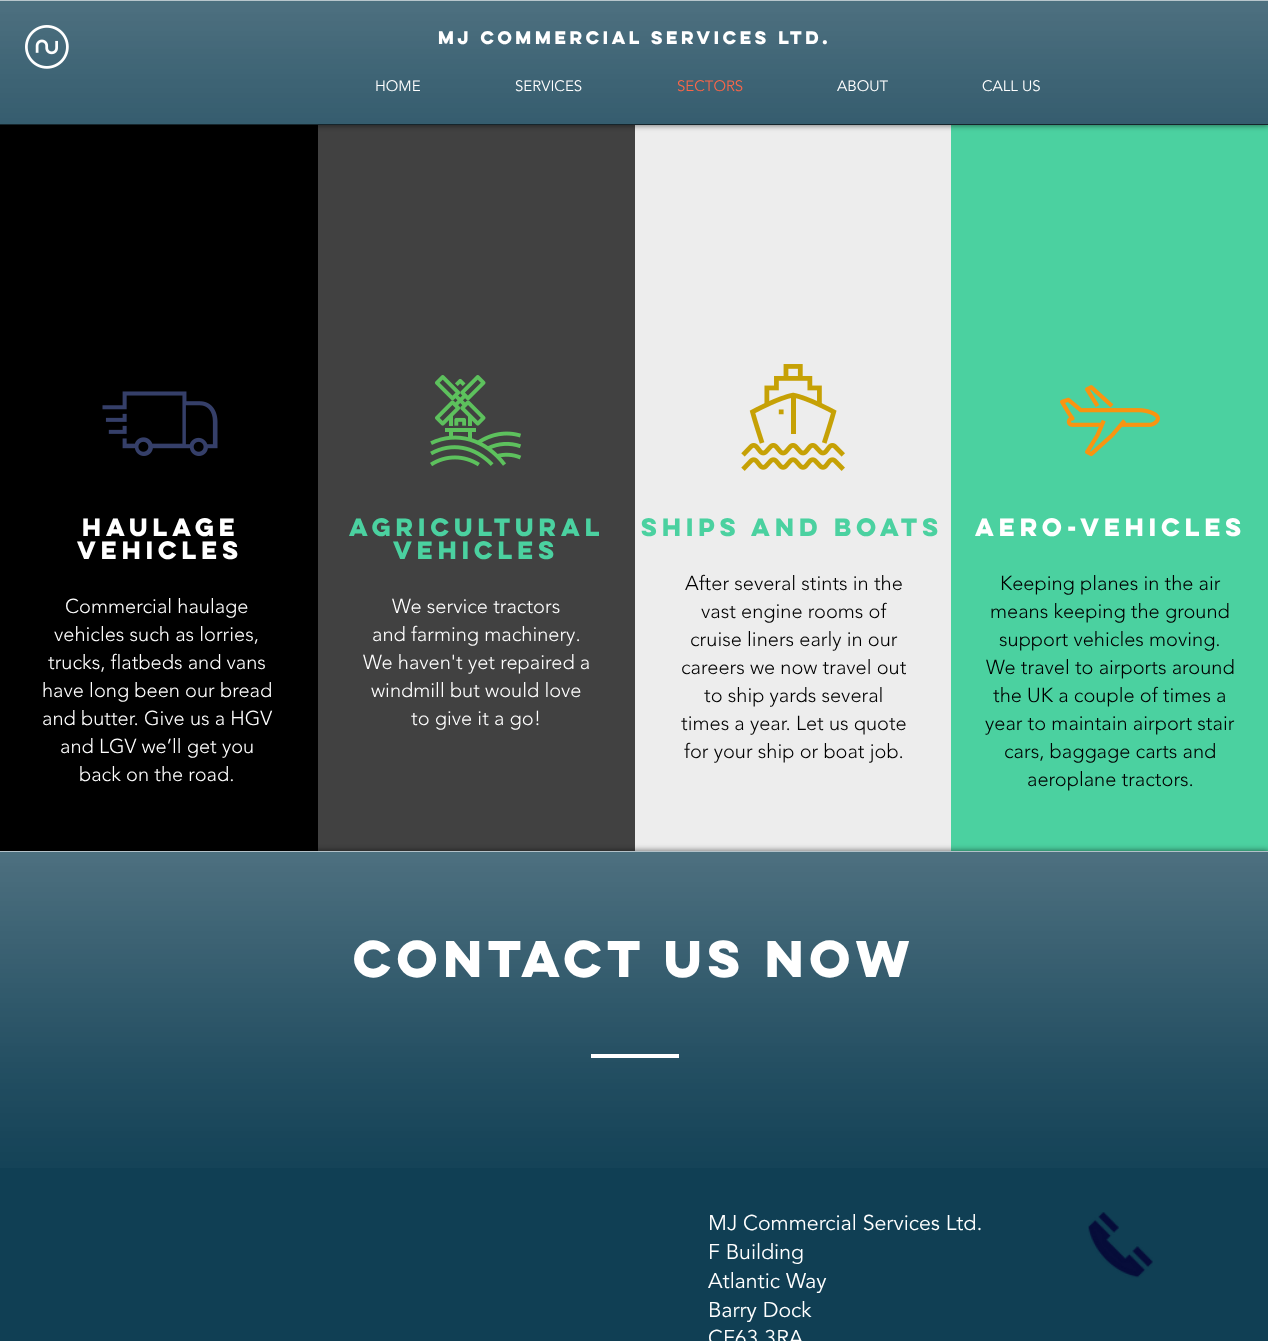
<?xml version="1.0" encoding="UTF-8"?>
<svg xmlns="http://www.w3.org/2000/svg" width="1268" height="1341">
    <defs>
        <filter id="blur1" x="-50%" y="-200%" width="200%" height="500%"><feGaussianBlur stdDeviation="3"/></filter>
    </defs>
    <rect width="100%" height="100%" fill="#000000"/>
    <rect x="318" y="125" width="317" height="726" fill="#414141"/>
    <rect x="635" y="125" width="316" height="726" fill="#EDEDED"/>
    <rect x="951" y="125" width="317" height="726" fill="#4BD1A0"/>
    <rect x="0" y="0" width="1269" height="125" fill="#000000" fill-opacity="0.6" filter="url(#blur1)"/>
    <rect x="0" y="1" width="1268" height="123" fill="#103F54"/>
    <image x="0" y="1" width="1268" height="123" href="img_01.png"/>
    <rect x="0" y="124" width="1268" height="1" fill="#15252C"/>
    <rect x="0" y="0" width="1268" height="1" fill="#B8C6CC"/>
    <image x="25" y="25" width="44" height="44" href="img_02.png"/>
    <text x="438" y="44" font-family="'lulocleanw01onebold'" font-size="16.25" font-weight="700" fill="#FFFFFF">MJ COMMERCIAL SERVICES LTD.</text>
    <text x="375" y="91" font-family="Avenir" font-size="15" fill="#FFFFFF">HOME</text>
    <text x="515" y="91" font-family="Avenir" font-size="15" fill="#FFFFFF">SERVICES</text>
    <text x="677" y="91" font-family="Avenir" font-size="15" fill="#FB6648">SECTORS</text>
    <text x="837" y="91" font-family="Avenir" font-size="15" fill="#FFFFFF">ABOUT</text>
    <text x="982" y="91" font-family="Avenir" font-size="15" fill="#FFFFFF">CALL US</text>
    <image x="102" y="391" width="116" height="65" href="img_03.png"/>
    <text x="82" y="536" font-family="'lulocleanw01onebold'" font-size="22.5" font-weight="700" fill="#FFFFFF">HAULAGE</text>
    <text x="77" y="559" font-family="'lulocleanw01onebold'" font-size="22.5" font-weight="700" fill="#FFFFFF">VEHICLES</text>
    <text x="65" y="613" font-family="'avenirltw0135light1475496'" font-size="20" font-weight="300" fill="#FFFFFF">Commercial haulage</text>
    <text x="54" y="641" font-family="'avenirltw0135light1475496'" font-size="20" font-weight="300" fill="#FFFFFF">vehicles such as lorries,</text>
    <text x="48" y="669" font-family="'avenirltw0135light1475496'" font-size="20" font-weight="300" fill="#FFFFFF">trucks, flatbeds and vans</text>
    <text font-family="'avenirltw0135light1475496'" font-size="20" font-weight="300" fill="#FFFFFF">
        <tspan x="42" y="697">have long been our bread</tspan>
        <tspan x="42" y="725">and butter. Give us a HGV</tspan>
    </text>
    <text x="60" y="753" font-family="'avenirltw0135light1475496'" font-size="20" font-weight="300" fill="#FFFFFF">and LGV we’ll get you</text>
    <text x="79" y="781" font-family="'avenirltw0135light1475496'" font-size="20" font-weight="300" fill="#FFFFFF">back on the road.</text>
    <image x="430" y="375" width="92" height="92" href="img_04.png"/>
    <text x="349" y="536" font-family="'lulocleanw01onebold'" font-size="22.5" font-weight="700" fill="#4BD1A0">AGRICULTURAL</text>
    <text x="393" y="559" font-family="'lulocleanw01onebold'" font-size="22.5" font-weight="700" fill="#4BD1A0">VEHICLES</text>
    <text x="392" y="613" font-family="'avenirltw0135light1475496'" font-size="20" font-weight="300" fill="#FFFFFF">We service tractors</text>
    <text x="372" y="641" font-family="'avenirltw0135light1475496'" font-size="20" font-weight="300" fill="#FFFFFF">and farming machinery.</text>
    <text x="363" y="669" font-family="'avenirltw0135light1475496'" font-size="20" font-weight="300" fill="#FFFFFF">We haven't yet repaired a</text>
    <text x="371" y="697" font-family="'avenirltw0135light1475496'" font-size="20" font-weight="300" fill="#FFFFFF">windmill but would love</text>
    <text x="411" y="725" font-family="'avenirltw0135light1475496'" font-size="20" font-weight="300" fill="#FFFFFF">to give it a go!</text>
    <image x="741" y="364" width="104" height="107" href="img_05.png"/>
    <text x="641" y="536" font-family="'lulocleanw01onebold'" font-size="22.5" font-weight="700" fill="#4BD1A0">SHIPS and BOATS</text>
    <text x="685" y="590" font-family="'avenirltw0135light1475496'" font-size="20" font-weight="300" fill="#000000">After several stints in the</text>
    <text x="701" y="618" font-family="'avenirltw0135light1475496'" font-size="20" font-weight="300" fill="#000000">vast engine rooms of</text>
    <text x="690" y="646" font-family="'avenirltw0135light1475496'" font-size="20" font-weight="300" fill="#000000">cruise liners early in our</text>
    <text x="681" y="674" font-family="'avenirltw0135light1475496'" font-size="20" font-weight="300" fill="#000000">careers we now travel out</text>
    <text x="704" y="702" font-family="'avenirltw0135light1475496'" font-size="20" font-weight="300" fill="#000000">to ship yards several</text>
    <text x="681" y="730" font-family="'avenirltw0135light1475496'" font-size="20" font-weight="300" fill="#000000">times a year. Let us quote</text>
    <text x="684" y="758" font-family="'avenirltw0135light1475496'" font-size="20" font-weight="300" fill="#000000">for your ship or boat job.</text>
    <image x="1060" y="385" width="100" height="72" href="img_06.png"/>
    <text x="975" y="536" font-family="'lulocleanw01onebold'" font-size="22.5" font-weight="700" fill="#FFFFFF">AERO-VEHICLES</text>
    <text x="1000" y="590" font-family="'avenirltw0135light1475496'" font-size="20" font-weight="300" fill="#000000">Keeping planes in the air</text>
    <text x="990" y="618" font-family="'avenirltw0135light1475496'" font-size="20" font-weight="300" fill="#000000">means keeping the ground</text>
    <text x="999" y="646" font-family="'avenirltw0135light1475496'" font-size="20" font-weight="300" fill="#000000">support vehicles moving.</text>
    <text x="986" y="674" font-family="'avenirltw0135light1475496'" font-size="20" font-weight="300" fill="#000000">We travel to airports around</text>
    <text x="993" y="702" font-family="'avenirltw0135light1475496'" font-size="20" font-weight="300" fill="#000000">the UK a couple of times a</text>
    <text x="985" y="730" font-family="'avenirltw0135light1475496'" font-size="20" font-weight="300" fill="#000000">year to maintain airport stair</text>
    <text x="1004" y="758" font-family="'avenirltw0135light1475496'" font-size="20" font-weight="300" fill="#000000">cars, baggage carts and</text>
    <text x="1027" y="786" font-family="'avenirltw0135light1475496'" font-size="20" font-weight="300" fill="#000000">aeroplane tractors.</text>
    <rect x="0" y="851" width="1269" height="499" fill="#000000" fill-opacity="0.6" filter="url(#blur1)"/>
    <rect x="0" y="852" width="1268" height="489" fill="#103F54"/>
    <image x="0" y="852" width="1268" height="316" href="img_07.png"/>
    <rect x="0" y="851" width="1268" height="1" fill="#B2C1C8"/>
    <text x="353" y="977" font-family="'lulocleanw01onebold'" font-size="46.25" font-weight="700" letter-spacing="-4.6" fill="#FFFFFF">Contact Us Now</text>
    <rect x="591" y="1054" width="88" height="4" fill="#FFFFFF"/>
    <text font-family="Avenir" font-size="21.25" fill="#FFFFFF">
        <tspan x="708" y="1230">MJ Commercial Services Ltd.</tspan>
        <tspan x="708" y="1259">F Building</tspan>
        <tspan x="708" y="1288">Atlantic Way</tspan>
        <tspan x="708" y="1317">Barry Dock</tspan>
        <tspan x="708" y="1345">CF63 3RA</tspan>
    </text>
    <image x="1088" y="1212" width="65" height="66" href="img_08.png"/>
</svg>
